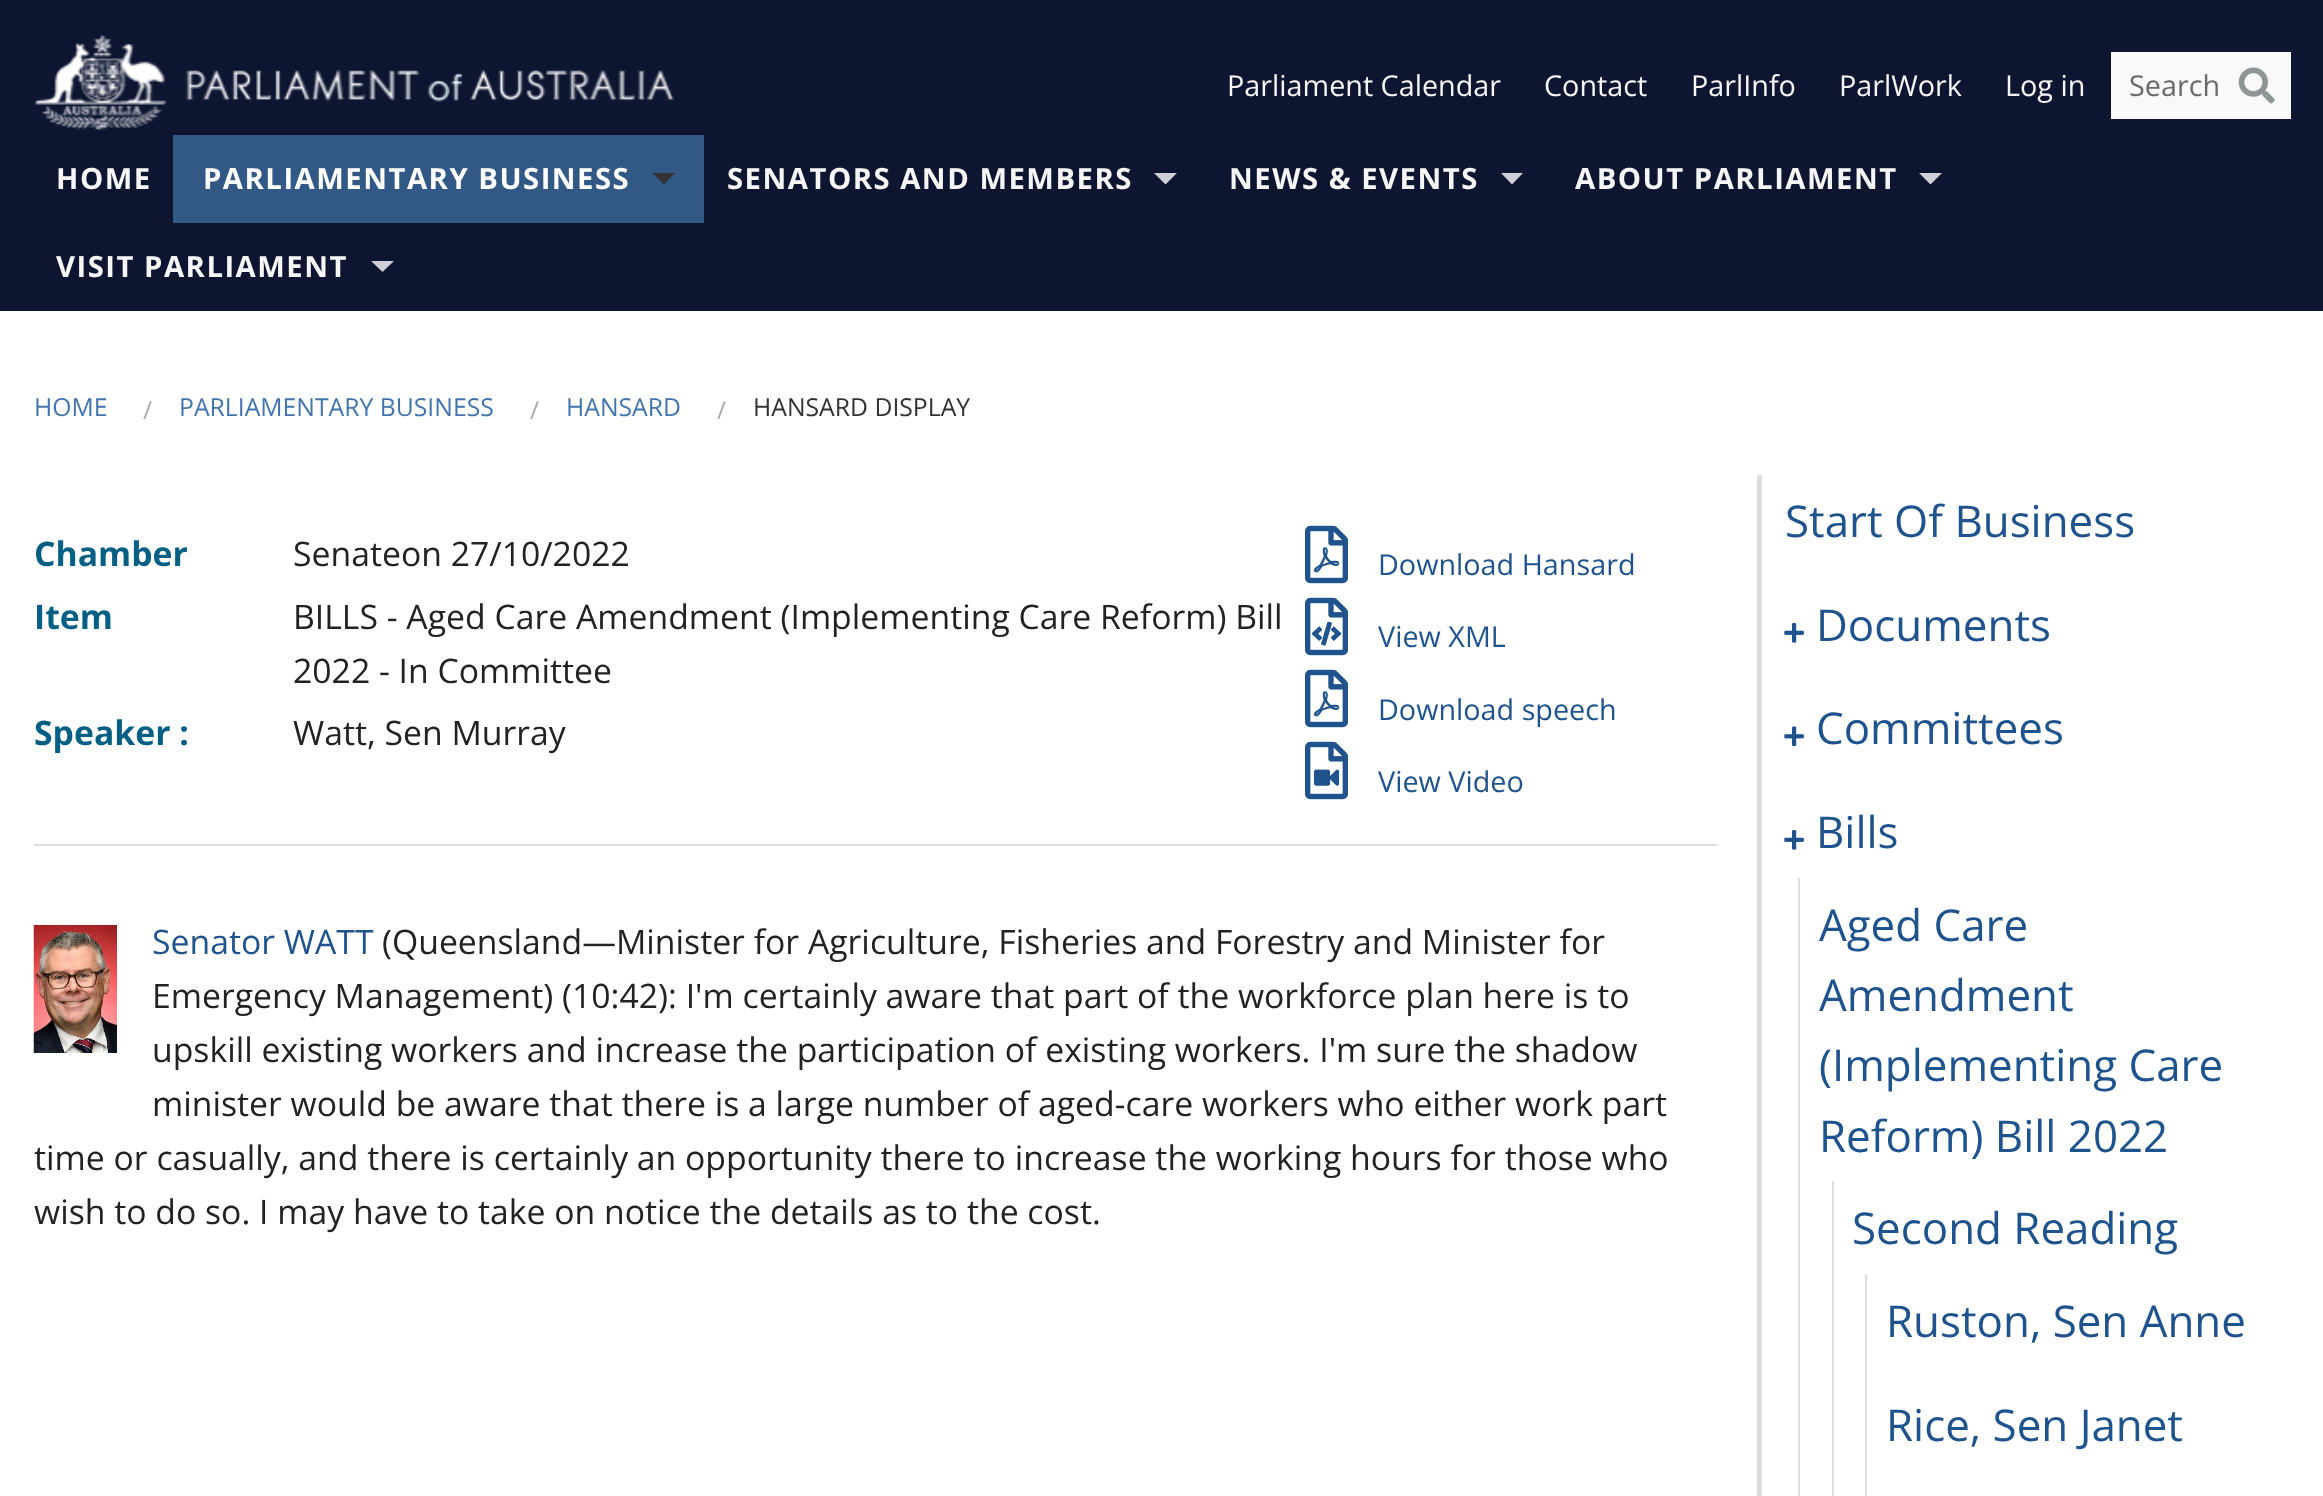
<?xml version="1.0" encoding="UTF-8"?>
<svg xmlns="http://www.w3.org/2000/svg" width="2323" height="1496">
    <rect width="100%" height="100%" fill="#FFFFFF"/>
    <rect x="0" y="0" width="2323" height="311" fill="#0E1531"/>
    <image x="35" y="35" width="639" height="95" href="img_01.png"/>
    <text x="1227" y="96" font-family="Open Sans" font-size="28.75" fill="#F6F6F6">Parliament Calendar</text>
    <text x="1544" y="96" font-family="Open Sans" font-size="28.75" fill="#F6F6F6">Contact</text>
    <text x="1691" y="96" font-family="Open Sans" font-size="28.75" fill="#F6F6F6">ParlInfo</text>
    <text x="1839" y="96" font-family="Open Sans" font-size="28.75" fill="#F6F6F6">ParlWork</text>
    <text x="2005" y="96" font-family="Open Sans" font-size="28.75" fill="#F6F6F6">Log in</text>
    <rect x="2111" y="52" width="180" height="67" fill="#F9F9F9"/>
    <text x="2129" y="96" font-family="Open Sans" font-size="28.75" fill="#696969">Search</text>
    <image x="2238" y="67" width="37" height="37" href="img_02.png"/>
    <text x="56" y="189" font-family="Open Sans" font-size="29.25" font-weight="700" letter-spacing="1.5" fill="#F6F6F6">HOME</text>
    <rect x="173" y="135" width="531" height="88" fill="#325986"/>
    <text x="203" y="189" font-family="Open Sans" font-size="29.25" font-weight="700" letter-spacing="1.5" fill="#FFFFFF">PARLIAMENTARY BUSINESS</text>
    <path d="M 652.5 173 H 675 L 664 184.5 Z" fill="#333333"/>
    <text x="727" y="189" font-family="Open Sans" font-size="29.25" font-weight="700" letter-spacing="1.5" fill="#F6F6F6">SENATORS AND MEMBERS</text>
    <path d="M 1154 173 H 1177 L 1165.5 184.5 Z" fill="#CFD0D6"/>
    <text x="1229" y="189" font-family="Open Sans" font-size="29.25" font-weight="700" letter-spacing="1.5" fill="#F6F6F6">NEWS &amp; EVENTS</text>
    <path d="M 1501 173 H 1523 L 1512 184.5 Z" fill="#CFD0D6"/>
    <text x="1575" y="189" font-family="Open Sans" font-size="29.25" font-weight="700" letter-spacing="1.5" fill="#F6F6F6">ABOUT PARLIAMENT</text>
    <path d="M 1919 173 H 1942 L 1930.5 184.5 Z" fill="#CFD0D6"/>
    <text x="56" y="277" font-family="Open Sans" font-size="29.25" font-weight="700" letter-spacing="1.5" fill="#F6F6F6">VISIT PARLIAMENT</text>
    <path d="M 371 261 H 394 L 382.5 272 Z" fill="#CFD0D6"/>
    <text x="34" y="416" font-family="Open Sans" font-size="24.75" fill="#4275AE">HOME</text>
    <text x="143" y="419" font-family="Open Sans" font-size="24.75" fill="#AAAAAA">/</text>
    <text x="179" y="416" font-family="Open Sans" font-size="24.75" fill="#4275AE">PARLIAMENTARY BUSINESS</text>
    <text x="530" y="419" font-family="Open Sans" font-size="24.75" fill="#AAAAAA">/</text>
    <text x="566" y="416" font-family="Open Sans" font-size="24.75" fill="#4275AE">HANSARD</text>
    <text x="717" y="419" font-family="Open Sans" font-size="24.75" fill="#AAAAAA">/</text>
    <text x="753" y="416" font-family="Open Sans" font-size="24.75" fill="#333333">HANSARD DISPLAY</text>
    <text x="34" y="566" font-family="Open Sans" font-size="33.75" font-weight="700" fill="#045F85">Chamber</text>
    <text x="293" y="566" font-family="Open Sans" font-size="33.75" fill="#222222">Senateon 27/10/2022</text>
    <text x="34" y="629" font-family="Open Sans" font-size="33.75" font-weight="700" fill="#045F85">Item</text>
    <text font-family="Open Sans" font-size="33.75" fill="#222222">
        <tspan x="293" y="629">BILLS - Aged Care Amendment (Implementing Care Reform) Bill</tspan>
        <tspan x="293" y="683">2022 - In Committee</tspan>
    </text>
    <text x="34" y="745" font-family="Open Sans" font-size="33.75" font-weight="700" fill="#045F85">Speaker :</text>
    <text x="293" y="745" font-family="Open Sans" font-size="33.75" fill="#222222">Watt, Sen Murray</text>
    <image x="1305" y="525" width="44" height="59" href="img_03.png"/>
    <text x="1378" y="575" font-family="Open Sans" font-size="28.75" fill="#1F538D">Download Hansard</text>
    <image x="1305" y="597" width="44" height="59" href="img_04.png"/>
    <text x="1378" y="647" font-family="Open Sans" font-size="28.75" fill="#1F538D">View XML</text>
    <image x="1305" y="669" width="44" height="59" href="img_03.png"/>
    <text x="1378" y="720" font-family="Open Sans" font-size="28.75" fill="#1F538D">Download speech</text>
    <image x="1305" y="741" width="44" height="59" href="img_05.png"/>
    <text x="1378" y="792" font-family="Open Sans" font-size="28.75" fill="#1F538D">View Video</text>
    <rect x="34" y="844" width="1683" height="2" fill="#DDDDDD"/>
    <image x="33" y="924" width="84" height="129" href="img_06.png"/>
    <text x="152" y="954" font-family="Open Sans" font-size="33.75" fill="#1F538D">Senator WATT</text>
    <text x="382" y="954" font-family="Open Sans" font-size="33.75" fill="#222222">(Queensland—Minister for Agriculture, Fisheries and Forestry and Minister for</text>
    <text font-family="Open Sans" font-size="33.75" fill="#222222">
        <tspan x="152" y="1008">Emergency Management) (10:42): I'm certainly aware that part of the workforce plan here is to</tspan>
        <tspan x="152" y="1062">upskill existing workers and increase the participation of existing workers. I'm sure the shadow</tspan>
        <tspan x="152" y="1116">minister would be aware that there is a large number of aged-care workers who either work part</tspan>
    </text>
    <text font-family="Open Sans" font-size="33.75" fill="#222222">
        <tspan x="34" y="1170">time or casually, and there is certainly an opportunity there to increase the working hours for those who</tspan>
        <tspan x="34" y="1224">wish to do so. I may have to take on notice the details as to the cost.</tspan>
    </text>
    <rect x="1757" y="475" width="5" height="1021" fill="#DDDDDD"/>
    <text x="1785" y="537" font-family="Open Sans" font-size="43.9" fill="#1F538D">Start Of Business</text>
    <image x="1784" y="623" width="20" height="20" href="img_07.png"/>
    <text x="1816" y="641" font-family="Open Sans" font-size="43.9" fill="#1F538D">Documents</text>
    <image x="1784" y="726" width="20" height="21" href="img_08.png"/>
    <text x="1816" y="744" font-family="Open Sans" font-size="43.9" fill="#1F538D">Committees</text>
    <image x="1784" y="830" width="20" height="20" href="img_07.png"/>
    <text x="1816" y="848" font-family="Open Sans" font-size="43.9" fill="#1F538D">Bills</text>
    <rect x="1798" y="878" width="2" height="618" fill="#DDDDDD"/>
    <text font-family="Open Sans" font-size="43.9" fill="#1F538D">
        <tspan x="1819" y="941">Aged Care</tspan>
        <tspan x="1819" y="1011">Amendment</tspan>
        <tspan x="1819" y="1081">(Implementing Care</tspan>
        <tspan x="1819" y="1152">Reform) Bill 2022</tspan>
    </text>
    <rect x="1832" y="1181" width="2" height="315" fill="#DDDDDD"/>
    <text x="1852" y="1244" font-family="Open Sans" font-size="43.9" fill="#1F538D">Second Reading</text>
    <rect x="1865" y="1274" width="2" height="222" fill="#DDDDDD"/>
    <text x="1886" y="1337" font-family="Open Sans" font-size="43.9" fill="#1F538D">Ruston, Sen Anne</text>
    <text x="1886" y="1441" font-family="Open Sans" font-size="43.9" fill="#1F538D">Rice, Sen Janet</text>
</svg>
